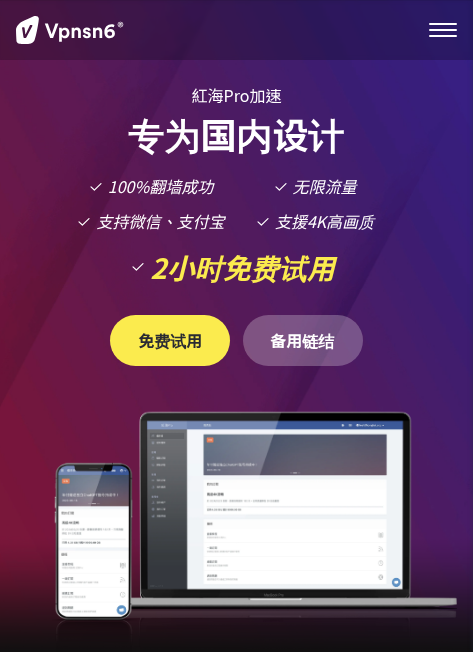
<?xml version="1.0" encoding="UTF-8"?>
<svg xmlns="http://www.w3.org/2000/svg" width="473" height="652">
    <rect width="100%" height="100%" fill="#FFFFFF"/>
    <image x="0" y="0" width="473" height="652" href="img_01.png"/>
</svg>
